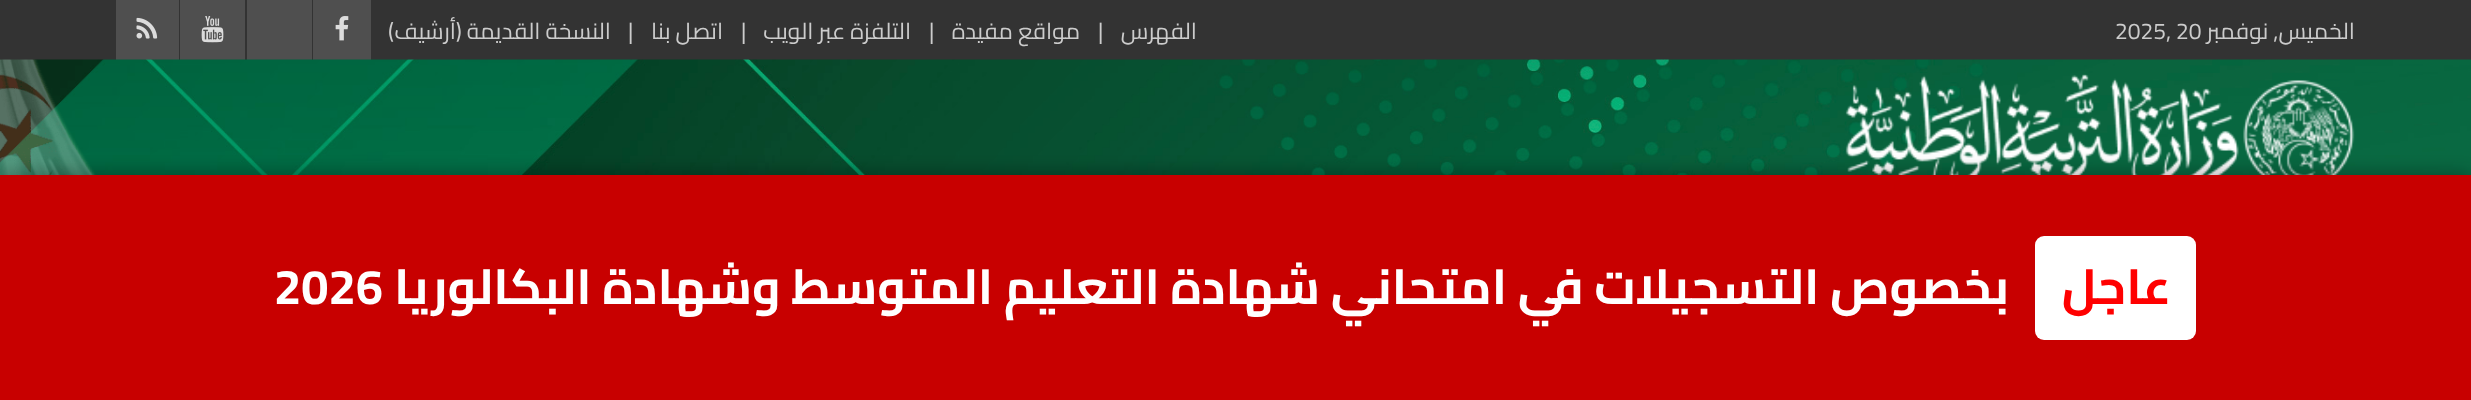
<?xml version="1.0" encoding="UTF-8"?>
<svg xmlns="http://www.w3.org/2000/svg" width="2471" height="400">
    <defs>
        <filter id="blur1" x="-50%" y="-200%" width="200%" height="500%"><feGaussianBlur stdDeviation="9"/></filter>
    </defs>
    <rect width="100%" height="100%" fill="#333333"/>
    <text x="2355" y="39" font-family="Cairo" font-size="22.75" direction="rtl" fill="#CCCCCC">الخميس, نوفمبر</text>
    <text x="2115" y="39" font-family="Cairo" font-size="22.75" fill="#CCCCCC">2025, 20</text>
    <text x="1197" y="39" font-family="Cairo" font-size="22.75" direction="rtl" fill="#CCCCCC">الفهرس</text>
    <text x="1098" y="39" font-family="Cairo" font-size="22.75" fill="#CCCCCC">|</text>
    <text x="1080" y="39" font-family="Cairo" font-size="22.75" direction="rtl" fill="#CCCCCC">مواقع مفيدة</text>
    <text x="929" y="39" font-family="Cairo" font-size="22.75" fill="#CCCCCC">|</text>
    <text x="911" y="39" font-family="Cairo" font-size="22.75" direction="rtl" fill="#CCCCCC">التلفزة عبر الويب</text>
    <text x="741" y="39" font-family="Cairo" font-size="22.75" fill="#CCCCCC">|</text>
    <text x="723" y="39" font-family="Cairo" font-size="22.75" direction="rtl" fill="#CCCCCC">اتصل بنا</text>
    <text x="628" y="39" font-family="Cairo" font-size="22.75" fill="#CCCCCC">|</text>
    <text x="611" y="39" font-family="Cairo" font-size="22.75" direction="rtl" fill="#CCCCCC">النسخة القديمة (أرشيف)</text>
    <rect x="313" y="0" width="58" height="60" fill="#4F4F4F"/>
    <image x="335" y="16" width="14" height="25" href="img_01.png"/>
    <rect x="247" y="0" width="65" height="60" fill="#4F4F4F"/>
    <rect x="180" y="0" width="65" height="60" fill="#4F4F4F"/>
    <image x="201" y="16" width="23" height="27" href="img_02.png"/>
    <rect x="116" y="0" width="63" height="60" fill="#4F4F4F"/>
    <image x="136" y="17" width="22" height="22" href="img_03.png"/>
    <image x="0" y="59" width="2471" height="116" href="img_04.png"/>
    <image x="1845" y="74" width="510" height="101" href="img_05.png"/>
    <rect x="0" y="172" width="2471" height="225" fill="#000000" fill-opacity="0.3" filter="url(#blur1)"/>
    <rect x="0" y="175" width="2471" height="225" fill="#C80000"/>
    <rect x="2035" y="236" width="161" height="104" rx="9" fill="#FFFFFF"/>
    <text x="2171" y="304" font-family="Cairo" font-size="49" font-weight="700" direction="rtl" fill="#FF0000">عاجل</text>
    <text x="2009" y="304" font-family="Cairo" font-size="49" font-weight="700" direction="rtl" fill="#FFFFFF">بخصوص التسجيلات في امتحاني شهادة التعليم المتوسط وشهادة البكالوريا</text>
    <text x="274" y="304" font-family="Cairo" font-size="49" font-weight="700" fill="#FFFFFF">2026</text>
</svg>
